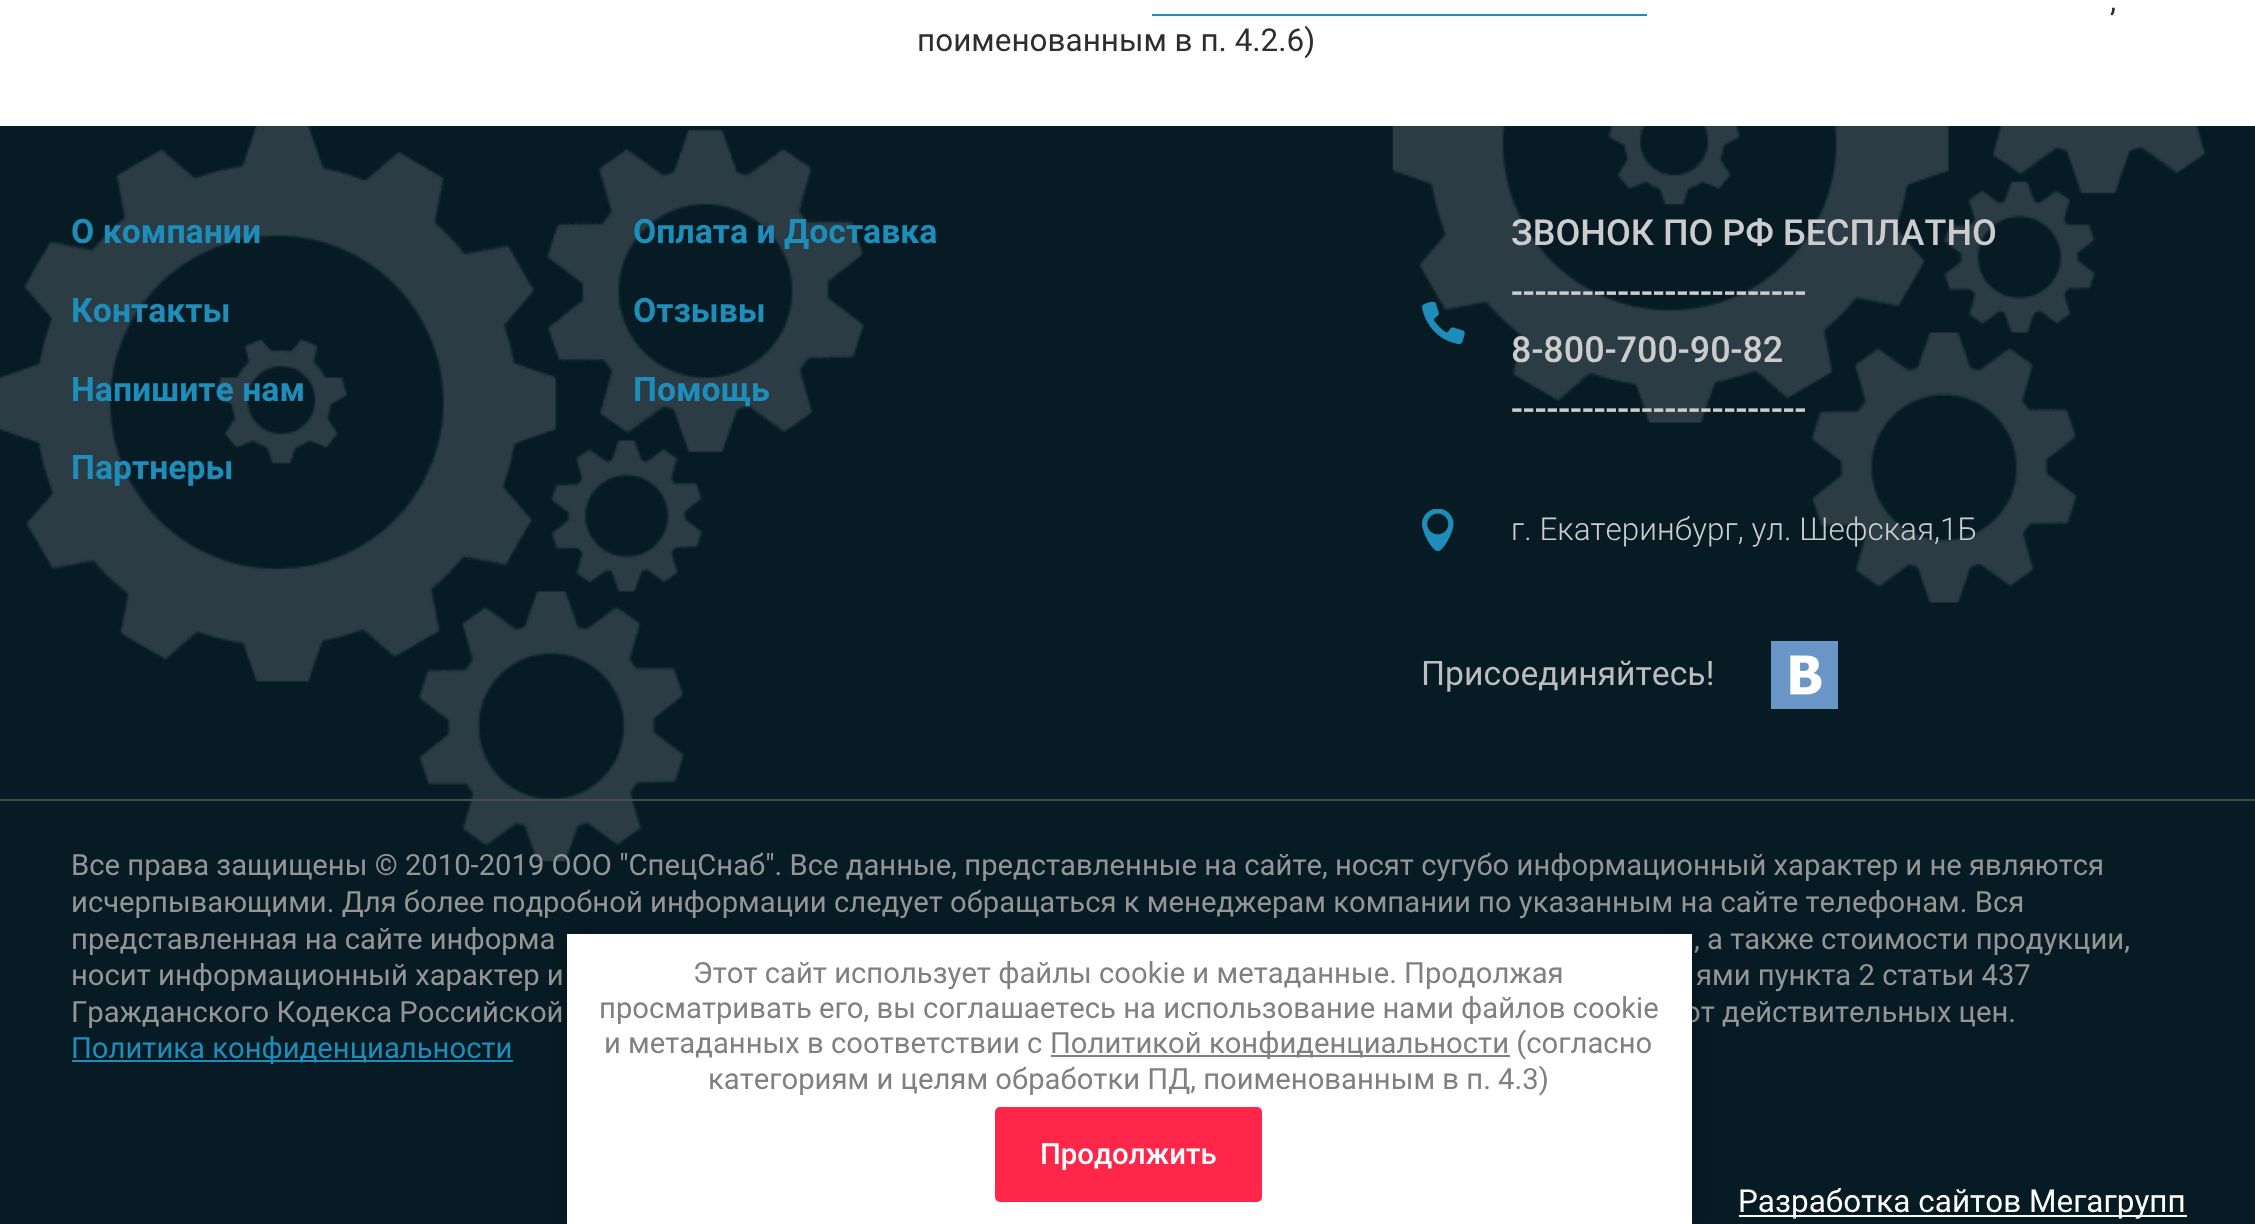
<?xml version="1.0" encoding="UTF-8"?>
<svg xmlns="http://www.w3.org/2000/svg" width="2255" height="1224">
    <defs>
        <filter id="blur1" x="-50%" y="-200%" width="200%" height="500%"><feGaussianBlur stdDeviation="11"/></filter>
    </defs>
    <rect width="100%" height="100%" fill="#FFFFFF"/>
    <text x="2110" y="11" font-family="Roboto" font-size="31.5" fill="#2E2E2E">,</text>
    <text x="917" y="51" font-family="Roboto" font-size="31.5" fill="#2E2E2E">поименованным в п. 4.2.6)</text>
    <rect x="1152" y="14" width="495" height="2" fill="#1E8DBA"/>
    <rect x="0" y="126" width="2255" height="1098" fill="#061B24"/>
    <image x="0" y="126" width="864" height="736" href="img_01.png"/>
    <image x="1392" y="126" width="814" height="477" href="img_02.png"/>
    <text x="71" y="243" font-family="Roboto" font-size="33.75" font-weight="700" fill="#1E8DBA">О компании</text>
    <text x="633" y="243" font-family="Roboto" font-size="33.75" font-weight="700" fill="#1E8DBA">Оплата и Доставка</text>
    <text x="71" y="322" font-family="Roboto" font-size="33.75" font-weight="700" fill="#1E8DBA">Контакты</text>
    <text x="633" y="322" font-family="Roboto" font-size="33.75" font-weight="700" fill="#1E8DBA">Отзывы</text>
    <text x="71" y="401" font-family="Roboto" font-size="33.75" font-weight="700" fill="#1E8DBA">Напишите нам</text>
    <text x="633" y="401" font-family="Roboto" font-size="33.75" font-weight="700" fill="#1E8DBA">Помощь</text>
    <text x="71" y="479" font-family="Roboto" font-size="33.75" font-weight="700" fill="#1E8DBA">Партнеры</text>
    <image x="1422" y="302" width="43" height="42" href="img_03.png"/>
    <text font-family="Roboto" font-size="36" font-weight="500" fill="#CCCCCC">
        <tspan x="1511" y="245">ЗВОНОК ПО РФ БЕСПЛАТНО</tspan>
        <tspan x="1511" y="304">-------------------------</tspan>
        <tspan x="1511" y="362">8-800-700-90-82</tspan>
        <tspan x="1511" y="421">-------------------------</tspan>
    </text>
    <image x="1422" y="509" width="32" height="42" href="img_04.png"/>
    <text x="1511" y="540" font-family="Roboto" font-size="31.5" font-weight="300" fill="#CCCCCC">г. Екатеринбург, ул. Шефская,1Б</text>
    <text x="1421" y="685" font-family="Roboto" font-size="33.75" fill="#BEBDBE">Присоединяйтесь!</text>
    <image x="1771" y="641" width="67" height="68" href="img_05.png"/>
    <rect x="0" y="799" width="2255" height="2" fill="#4A4A4A"/>
    <text font-family="Roboto" font-size="29.25" fill="#959595">
        <tspan x="71" y="875">Все права защищены © 2010-2019 ООО "СпецСнаб". Все данные, представленные на сайте, носят сугубо информационный характер и не являются</tspan>
        <tspan x="71" y="912">исчерпывающими. Для более подробной информации следует обращаться к менеджерам компании по указанным на сайте телефонам. Вся</tspan>
        <tspan x="71" y="949">представленная на сайте информа</tspan>
    </text>
    <text x="1694" y="949" font-family="Roboto" font-size="29.25" fill="#959595">, а также стоимости продукции,</text>
    <text x="71" y="985" font-family="Roboto" font-size="29.25" fill="#959595">носит информационный характер и</text>
    <text x="1696" y="985" font-family="Roboto" font-size="29.25" fill="#959595">ями пункта 2 статьи 437</text>
    <text x="71" y="1022" font-family="Roboto" font-size="29.25" fill="#959595">Гражданского Кодекса Российской</text>
    <text x="1684" y="1022" font-family="Roboto" font-size="29.25" fill="#959595">от действительных цен.</text>
    <rect x="72" y="1060" width="441" height="2" fill="#1E8DBA"/>
    <text x="71" y="1058" font-family="Roboto" font-size="29.25" fill="#1E8DBA">Политика конфиденциальности</text>
    <rect x="1739" y="1215" width="448" height="2" fill="#FFFFFF"/>
    <text x="1738" y="1212" font-family="Roboto" font-size="31.5" fill="#FFFFFF">Разработка сайтов Мегагрупп</text>
    <rect x="567" y="936" width="1125" height="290" fill="#000000" fill-opacity="0.23" filter="url(#blur1)"/>
    <rect x="567" y="934" width="1125" height="290" fill="#FFFFFF"/>
    <text x="693" y="983" font-family="Roboto" font-size="29.25" fill="#808080">Этот сайт использует файлы cookie и метаданные. Продолжая</text>
    <text x="599" y="1018" font-family="Roboto" font-size="29.25" fill="#808080">просматривать его, вы соглашаетесь на использование нами файлов cookie</text>
    <text x="604" y="1053" font-family="Roboto" font-size="29.25" fill="#808080">и метаданных в соответствии с</text>
    <rect x="1051" y="1055" width="459" height="2" fill="#808080"/>
    <text x="1050" y="1053" font-family="Roboto" font-size="29.25" fill="#808080">Политикой конфиденциальности (согласно</text>
    <text x="708" y="1089" font-family="Roboto" font-size="29.25" fill="#808080">категориям и целям обработки ПД, поименованным в п. 4.3)</text>
    <rect x="995" y="1107" width="267" height="95" rx="5" fill="#FE2749"/>
    <text x="1040" y="1164" font-family="Roboto" font-size="29.25" font-weight="500" fill="#FFFFFF">Продолжить</text>
</svg>
